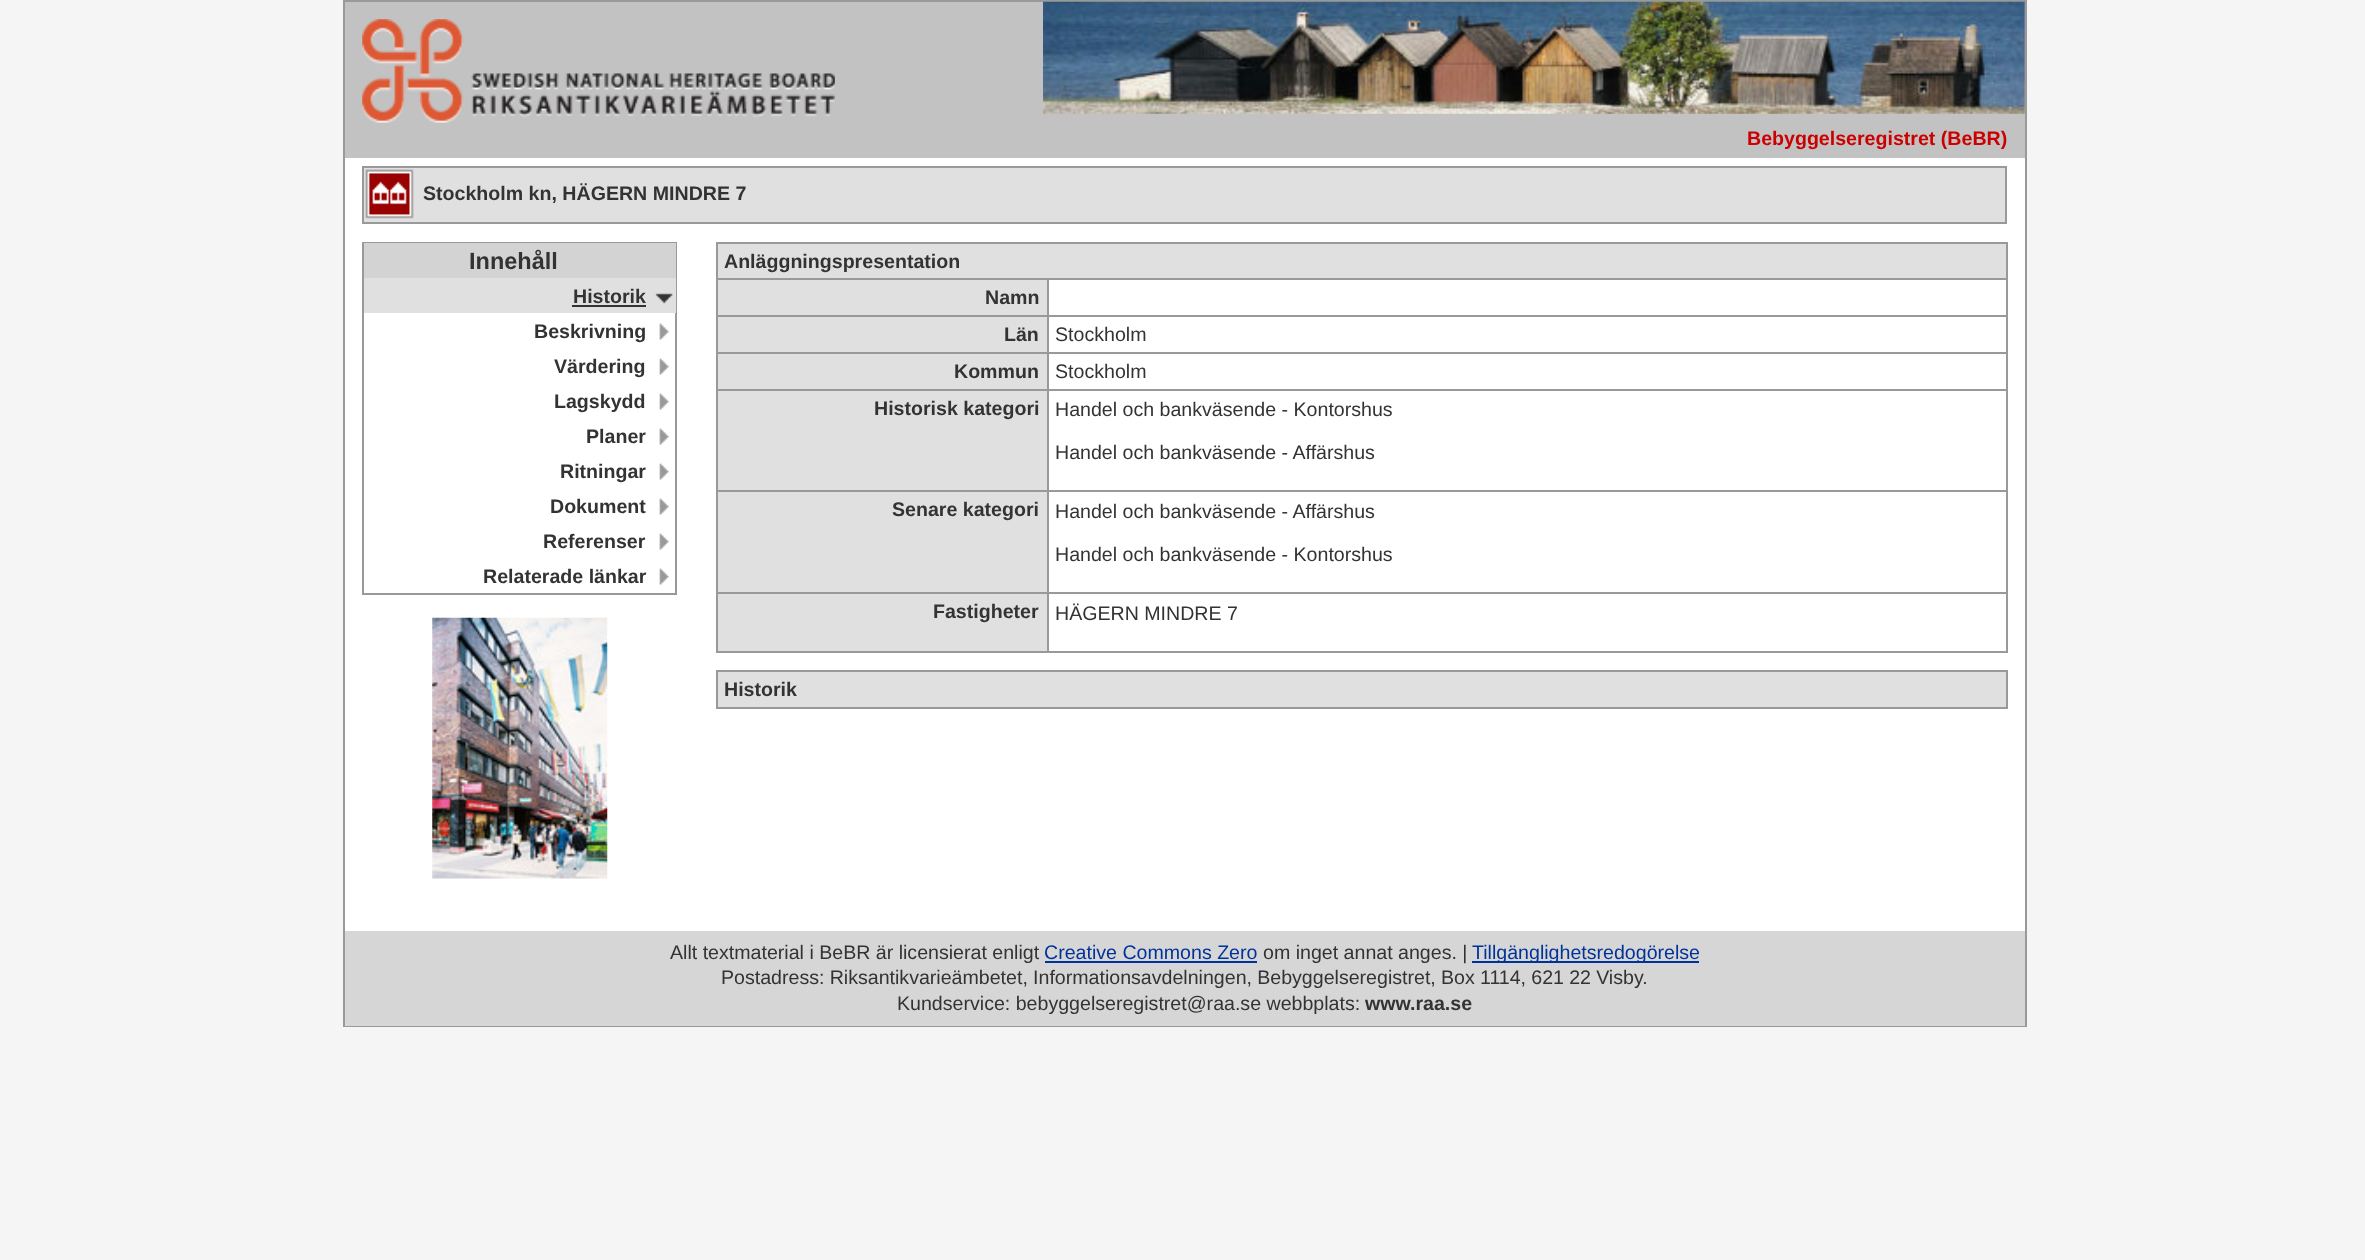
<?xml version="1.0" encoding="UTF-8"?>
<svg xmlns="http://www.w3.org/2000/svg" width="2365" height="1260">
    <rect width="100%" height="100%" fill="#F5F5F5"/>
    <rect x="345" y="158" width="1680" height="773" fill="#FFFFFF"/>
    <rect x="344" y="1" width="1682" height="1025" fill="none" stroke="#999999" stroke-width="2"/>
    <rect x="345" y="2" width="1680" height="156" fill="#C2C2C2"/>
    <image x="362" y="19" width="473" height="104" href="img_01.png"/>
    <image x="1043" y="1" width="982" height="113" href="img_02.png"/>
    <text x="1747" y="145" font-family="Liberation Sans" font-size="19.6" font-weight="700" fill="#CC0000">Bebyggelseregistret (BeBR)</text>
    <rect x="364" y="168" width="1641" height="54" fill="#E0E0E0"/>
    <image x="365" y="169" width="49" height="50" href="img_03.png"/>
    <rect x="363" y="167" width="1643" height="56" fill="none" stroke="#999999" stroke-width="2"/>
    <text x="423" y="200" font-family="Liberation Sans" font-size="19.6" font-weight="700" fill="#333333">Stockholm kn, HÄGERN MINDRE 7</text>
    <rect x="363" y="243" width="313" height="351" fill="none" stroke="#999999" stroke-width="2"/>
    <rect x="364" y="243" width="312" height="35" fill="#D3D3D3"/>
    <text x="469" y="269" font-family="Liberation Sans" font-size="23.5" font-weight="700" fill="#333333">Innehåll</text>
    <rect x="364" y="278" width="312" height="35" fill="#E0E0E0"/>
    <image x="655" y="293" width="18" height="11" href="img_04.png"/>
    <text x="573" y="303" font-family="Liberation Sans" font-size="19.6" font-weight="700" fill="#333333">Historik</text>
    <rect x="572" y="305" width="74" height="2" fill="#333333"/>
    <image x="659" y="323" width="10" height="17" href="img_05.png"/>
    <text x="534" y="338" font-family="Liberation Sans" font-size="19.6" font-weight="700" fill="#333333">Beskrivning</text>
    <image x="659" y="358" width="10" height="17" href="img_05.png"/>
    <text x="554" y="373" font-family="Liberation Sans" font-size="19.6" font-weight="700" fill="#333333">Värdering</text>
    <image x="659" y="393" width="10" height="17" href="img_05.png"/>
    <text x="554" y="408" font-family="Liberation Sans" font-size="19.6" font-weight="700" fill="#333333">Lagskydd</text>
    <image x="659" y="428" width="10" height="17" href="img_05.png"/>
    <text x="586" y="443" font-family="Liberation Sans" font-size="19.6" font-weight="700" fill="#333333">Planer</text>
    <image x="659" y="463" width="10" height="17" href="img_05.png"/>
    <text x="560" y="478" font-family="Liberation Sans" font-size="19.6" font-weight="700" fill="#333333">Ritningar</text>
    <image x="659" y="498" width="10" height="17" href="img_05.png"/>
    <text x="550" y="513" font-family="Liberation Sans" font-size="19.6" font-weight="700" fill="#333333">Dokument</text>
    <image x="659" y="533" width="10" height="17" href="img_05.png"/>
    <text x="543" y="548" font-family="Liberation Sans" font-size="19.6" font-weight="700" fill="#333333">Referenser</text>
    <image x="659" y="568" width="10" height="17" href="img_05.png"/>
    <text x="483" y="583" font-family="Liberation Sans" font-size="19.6" font-weight="700" fill="#333333">Relaterade länkar</text>
    <image x="432" y="617" width="176" height="262" href="img_06.png"/>
    <rect x="718" y="244" width="1288" height="34" fill="#E0E0E0"/>
    <rect x="716" y="242" width="1291" height="2" fill="#999999"/>
    <rect x="1047" y="278" width="960" height="2" fill="#999999"/>
    <rect x="1047" y="315" width="960" height="2" fill="#999999"/>
    <rect x="1047" y="352" width="960" height="2" fill="#999999"/>
    <rect x="1047" y="389" width="960" height="2" fill="#999999"/>
    <rect x="1047" y="490" width="960" height="2" fill="#999999"/>
    <rect x="1047" y="592" width="960" height="2" fill="#999999"/>
    <rect x="2006" y="592" width="2" height="61" fill="#999999"/>
    <rect x="2006" y="490" width="2" height="103" fill="#999999"/>
    <rect x="2006" y="389" width="2" height="103" fill="#999999"/>
    <rect x="2006" y="352" width="2" height="38" fill="#999999"/>
    <rect x="2006" y="315" width="2" height="39" fill="#999999"/>
    <rect x="2006" y="278" width="2" height="39" fill="#999999"/>
    <rect x="2006" y="242" width="2" height="38" fill="#999999"/>
    <rect x="1047" y="651" width="960" height="2" fill="#999999"/>
    <rect x="1047" y="592" width="2" height="61" fill="#999999"/>
    <rect x="716" y="592" width="332" height="2" fill="#999999"/>
    <rect x="1047" y="490" width="2" height="103" fill="#999999"/>
    <rect x="716" y="490" width="332" height="2" fill="#999999"/>
    <rect x="1047" y="389" width="2" height="103" fill="#999999"/>
    <rect x="716" y="389" width="332" height="2" fill="#999999"/>
    <rect x="1047" y="352" width="2" height="38" fill="#999999"/>
    <rect x="716" y="352" width="332" height="2" fill="#999999"/>
    <rect x="1047" y="315" width="2" height="39" fill="#999999"/>
    <rect x="716" y="315" width="332" height="2" fill="#999999"/>
    <rect x="1047" y="278" width="2" height="39" fill="#999999"/>
    <rect x="716" y="278" width="332" height="2" fill="#999999"/>
    <rect x="716" y="651" width="332" height="2" fill="#999999"/>
    <rect x="716" y="592" width="2" height="61" fill="#999999"/>
    <rect x="716" y="490" width="2" height="103" fill="#999999"/>
    <rect x="716" y="389" width="2" height="103" fill="#999999"/>
    <rect x="716" y="352" width="2" height="38" fill="#999999"/>
    <rect x="716" y="315" width="2" height="39" fill="#999999"/>
    <rect x="716" y="278" width="2" height="39" fill="#999999"/>
    <rect x="716" y="242" width="2" height="38" fill="#999999"/>
    <text x="724" y="268" font-family="Liberation Sans" font-size="19.6" font-weight="700" fill="#333333">Anläggningspresentation</text>
    <rect x="718" y="280" width="329" height="35" fill="#E0E0E0"/>
    <text x="985" y="304" font-family="Liberation Sans" font-size="19.6" font-weight="700" fill="#333333">Namn</text>
    <rect x="718" y="317" width="329" height="35" fill="#E0E0E0"/>
    <text x="1004" y="341" font-family="Liberation Sans" font-size="19.6" font-weight="700" fill="#333333">Län</text>
    <text x="1055" y="341" font-family="Liberation Sans" font-size="19.6" fill="#333333">Stockholm</text>
    <rect x="718" y="354" width="329" height="35" fill="#E0E0E0"/>
    <text x="954" y="378" font-family="Liberation Sans" font-size="19.6" font-weight="700" fill="#333333">Kommun</text>
    <text x="1055" y="378" font-family="Liberation Sans" font-size="19.6" fill="#333333">Stockholm</text>
    <rect x="718" y="391" width="329" height="99" fill="#E0E0E0"/>
    <text x="874" y="415" font-family="Liberation Sans" font-size="19.6" font-weight="700" fill="#333333">Historisk kategori</text>
    <text x="1055" y="416" font-family="Liberation Sans" font-size="19.6" fill="#333333">Handel och bankväsende - Kontorshus</text>
    <text x="1055" y="459" font-family="Liberation Sans" font-size="19.6" fill="#333333">Handel och bankväsende - Affärshus</text>
    <rect x="718" y="492" width="329" height="100" fill="#E0E0E0"/>
    <text x="892" y="516" font-family="Liberation Sans" font-size="19.6" font-weight="700" fill="#333333">Senare kategori</text>
    <text x="1055" y="518" font-family="Liberation Sans" font-size="19.6" fill="#333333">Handel och bankväsende - Affärshus</text>
    <text x="1055" y="561" font-family="Liberation Sans" font-size="19.6" fill="#333333">Handel och bankväsende - Kontorshus</text>
    <rect x="718" y="594" width="329" height="57" fill="#E0E0E0"/>
    <text x="933" y="618" font-family="Liberation Sans" font-size="19.6" font-weight="700" fill="#333333">Fastigheter</text>
    <text x="1055" y="620" font-family="Liberation Sans" font-size="19.6" fill="#333333">HÄGERN MINDRE 7</text>
    <rect x="718" y="672" width="1288" height="35" fill="#E0E0E0"/>
    <rect x="716" y="670" width="1291" height="2" fill="#999999"/>
    <rect x="2006" y="670" width="2" height="39" fill="#999999"/>
    <rect x="716" y="707" width="1291" height="2" fill="#999999"/>
    <rect x="716" y="670" width="2" height="39" fill="#999999"/>
    <text x="724" y="696" font-family="Liberation Sans" font-size="19.6" font-weight="700" fill="#333333">Historik</text>
    <rect x="345" y="931" width="1680" height="95" fill="#D6D6D6"/>
    <text x="670" y="959" font-family="Liberation Sans" font-size="19.6" fill="#333333">Allt textmaterial i BeBR är licensierat enligt</text>
    <text x="1044" y="959" font-family="Liberation Sans" font-size="19.6" fill="#003399">Creative Commons Zero</text>
    <rect x="1045" y="961" width="212" height="2" fill="#003399"/>
    <text x="1263" y="959" font-family="Liberation Sans" font-size="19.6" fill="#333333">om inget annat anges. |</text>
    <rect x="1472" y="961" width="227" height="2" fill="#003399"/>
    <text x="1472" y="959" font-family="Liberation Sans" font-size="19.6" fill="#003399">Tillgänglighetsredogörelse</text>
    <text x="721" y="984" word-spacing="-0.25" font-family="Liberation Sans" font-size="19.6" fill="#333333">Postadress: Riksantikvarieämbetet, Informationsavdelningen, Bebyggelseregistret, Box 1114, 621 22 Visby.</text>
    <text x="897" y="1010" font-family="Liberation Sans" font-size="19.6" fill="#333333">Kundservice: bebyggelseregistret@raa.se webbplats:</text>
    <text x="1365" y="1010" font-family="Liberation Sans" font-size="19.6" font-weight="700" fill="#333333">www.raa.se</text>
</svg>
